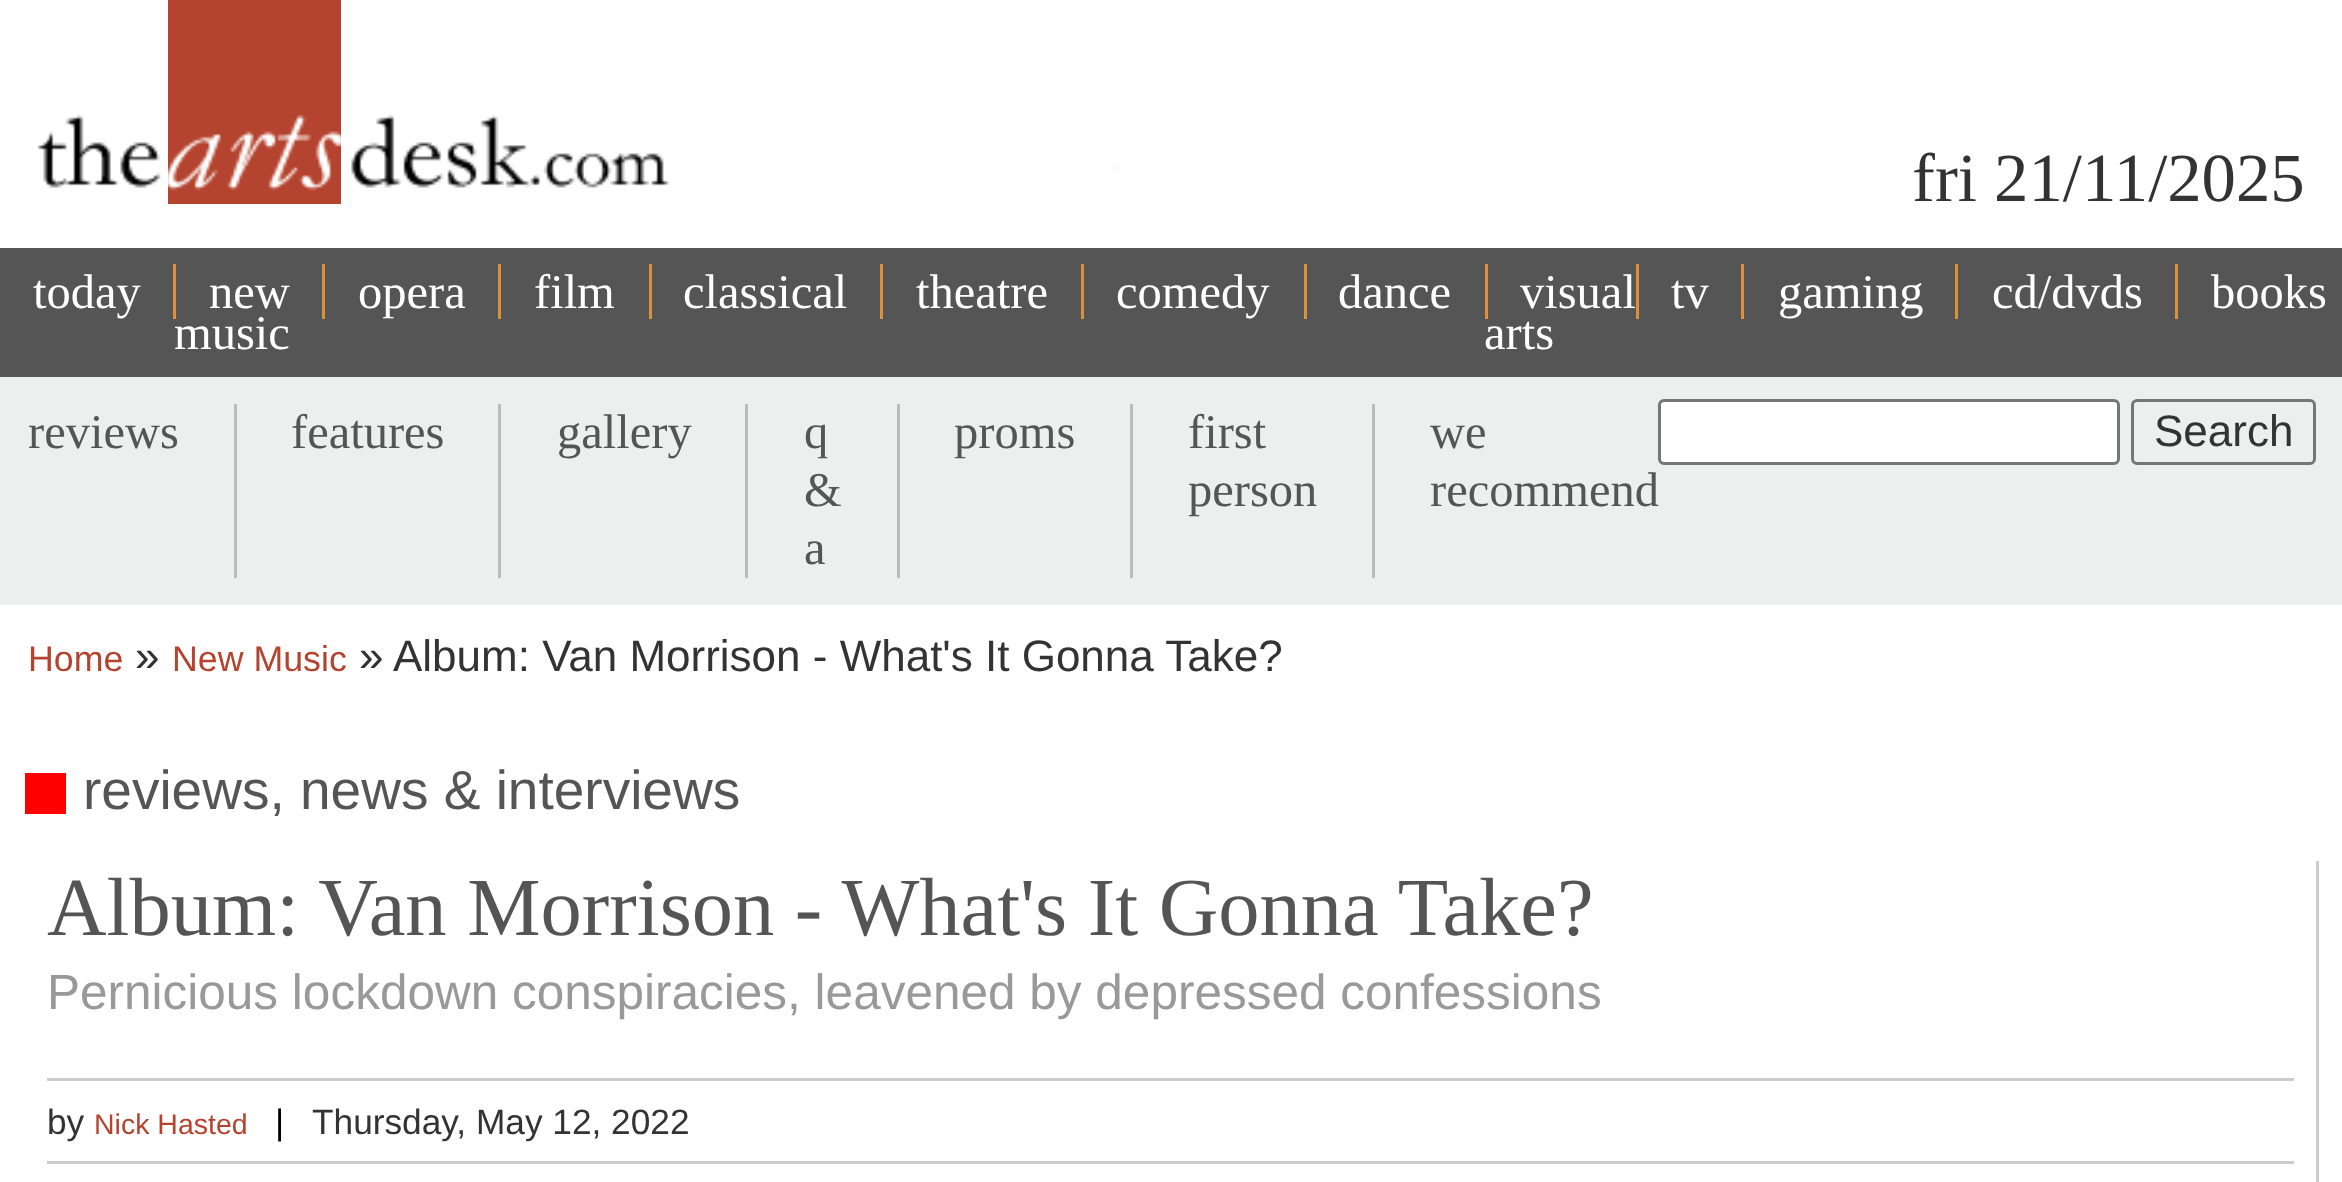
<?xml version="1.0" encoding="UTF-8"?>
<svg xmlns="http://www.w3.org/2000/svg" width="2342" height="1182">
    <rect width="100%" height="100%" fill="#FFFFFF"/>
    <rect x="168" y="0" width="173" height="204" fill="#B4442F"/>
    <image x="37" y="114" width="1083" height="77" href="img_01.png"/>
    <text x="1912" y="201" font-family="Liberation Serif" font-size="68.75" fill="#333333">fri 21/11/2025</text>
    <rect x="0" y="248" width="2342" height="129" fill="#555555"/>
    <text x="33" y="308" font-family="Liberation Serif" font-size="48.5" fill="#FFFFFF">today</text>
    <text x="209" y="308" font-family="Liberation Serif" font-size="48.5" fill="#FFFFFF">new</text>
    <rect x="173" y="264" width="3" height="55" fill="#DB903A"/>
    <text x="174" y="349" font-family="Liberation Serif" font-size="48.5" fill="#FFFFFF">music</text>
    <text x="358" y="308" font-family="Liberation Serif" font-size="48.5" fill="#FFFFFF">opera</text>
    <rect x="322" y="264" width="3" height="55" fill="#DB903A"/>
    <text x="534" y="308" font-family="Liberation Serif" font-size="48.5" fill="#FFFFFF">film</text>
    <rect x="498" y="264" width="3" height="55" fill="#DB903A"/>
    <text x="683" y="308" font-family="Liberation Serif" font-size="48.5" fill="#FFFFFF">classical</text>
    <rect x="649" y="264" width="3" height="55" fill="#DB903A"/>
    <text x="916" y="308" font-family="Liberation Serif" font-size="48.5" fill="#FFFFFF">theatre</text>
    <rect x="880" y="264" width="3" height="55" fill="#DB903A"/>
    <text x="1116" y="308" font-family="Liberation Serif" font-size="48.5" fill="#FFFFFF">comedy</text>
    <rect x="1081" y="264" width="3" height="55" fill="#DB903A"/>
    <text x="1338" y="308" font-family="Liberation Serif" font-size="48.5" fill="#FFFFFF">dance</text>
    <rect x="1304" y="264" width="3" height="55" fill="#DB903A"/>
    <text x="1520" y="308" font-family="Liberation Serif" font-size="48.5" fill="#FFFFFF">visual</text>
    <rect x="1485" y="264" width="3" height="55" fill="#DB903A"/>
    <text x="1484" y="349" font-family="Liberation Serif" font-size="48.5" fill="#FFFFFF">arts</text>
    <text x="1671" y="308" font-family="Liberation Serif" font-size="48.5" fill="#FFFFFF">tv</text>
    <rect x="1636" y="264" width="3" height="55" fill="#DB903A"/>
    <text x="1778" y="308" font-family="Liberation Serif" font-size="48.5" fill="#FFFFFF">gaming</text>
    <rect x="1741" y="264" width="3" height="55" fill="#DB903A"/>
    <text x="1992" y="308" font-family="Liberation Serif" font-size="48.5" fill="#FFFFFF">cd/dvds</text>
    <rect x="1955" y="264" width="3" height="55" fill="#DB903A"/>
    <text x="2211" y="308" font-family="Liberation Serif" font-size="48.5" fill="#FFFFFF">books</text>
    <rect x="2175" y="264" width="3" height="55" fill="#DB903A"/>
    <rect x="0" y="377" width="2342" height="228" fill="#EDEFEF"/>
    <text x="28" y="448" font-family="Liberation Serif" font-size="48.5" fill="#555555">reviews</text>
    <rect x="234" y="404" width="3" height="174" fill="#BBBBBB"/>
    <text x="291" y="448" font-family="Liberation Serif" font-size="48.5" fill="#555555">features</text>
    <rect x="498" y="404" width="3" height="174" fill="#BBBBBB"/>
    <text x="557" y="448" font-family="Liberation Serif" font-size="48.5" fill="#555555">gallery</text>
    <rect x="745" y="404" width="3" height="174" fill="#BBBBBB"/>
    <text font-family="Liberation Serif" font-size="48.5" fill="#555555">
        <tspan x="804" y="448">q</tspan>
        <tspan x="804" y="506">&amp;</tspan>
        <tspan x="804" y="564">a</tspan>
    </text>
    <rect x="897" y="404" width="3" height="174" fill="#BBBBBB"/>
    <text x="954" y="448" font-family="Liberation Serif" font-size="48.5" fill="#555555">proms</text>
    <rect x="1130" y="404" width="3" height="174" fill="#BBBBBB"/>
    <text font-family="Liberation Serif" font-size="48.5" fill="#555555">
        <tspan x="1188" y="448">first</tspan>
        <tspan x="1188" y="506">person</tspan>
    </text>
    <rect x="1372" y="404" width="3" height="174" fill="#BBBBBB"/>
    <text font-family="Liberation Serif" font-size="48.5" fill="#555555">
        <tspan x="1430" y="448">we</tspan>
        <tspan x="1430" y="506">recommend</tspan>
    </text>
    <rect x="1659.5" y="400.5" width="459" height="63" rx="4.5" fill="#FFFFFF" stroke="#767676" stroke-width="3"/>
    <rect x="2132.5" y="400.5" width="182" height="63" rx="4.5" fill="none" stroke="#767676" stroke-width="3"/>
    <text x="2154" y="446" font-family="Liberation Sans" font-size="44" fill="#333333">Search</text>
    <text x="28" y="671" font-family="Liberation Sans" font-size="35.75" fill="#B4442F">Home</text>
    <text x="135" y="671" font-family="Liberation Sans" font-size="44" fill="#333333">»</text>
    <text x="172" y="671" font-family="Liberation Sans" font-size="35.75" fill="#B4442F">New Music</text>
    <text x="359" y="671" font-family="Liberation Sans" font-size="44" fill="#333333">»</text>
    <text x="393" y="671" font-family="Liberation Sans" font-size="44" fill="#333333">Album: Van Morrison - What's It Gonna Take?</text>
    <rect x="25" y="773" width="41" height="41" fill="#FF0000"/>
    <text x="83" y="809" font-family="Liberation Sans" font-size="55" fill="#555555">reviews, news &amp; interviews</text>
    <rect x="2316" y="861" width="3" height="321" fill="#CCCCCC"/>
    <text x="47" y="935" font-family="Liberation Serif" font-size="82.5" fill="#555555">Album: Van Morrison - What's It Gonna Take?</text>
    <text x="47" y="1009" font-family="Liberation Sans" font-size="49.5" fill="#999999">Pernicious lockdown conspiracies, leavened by depressed confessions</text>
    <rect x="47" y="1078" width="2247" height="3" fill="#CCCCCC"/>
    <rect x="47" y="1161" width="2247" height="3" fill="#CCCCCC"/>
    <text x="47" y="1134" font-family="Liberation Sans" font-size="35.25" fill="#333333">by</text>
    <text x="94" y="1134" font-family="Liberation Sans" font-size="28.5" fill="#B4442F">Nick Hasted</text>
    <text x="275" y="1134" font-family="Liberation Sans" font-size="35.25" fill="#000000">|</text>
    <text x="312" y="1134" font-family="Liberation Sans" font-size="35.25" fill="#333333">Thursday, May 12, 2022</text>
</svg>
